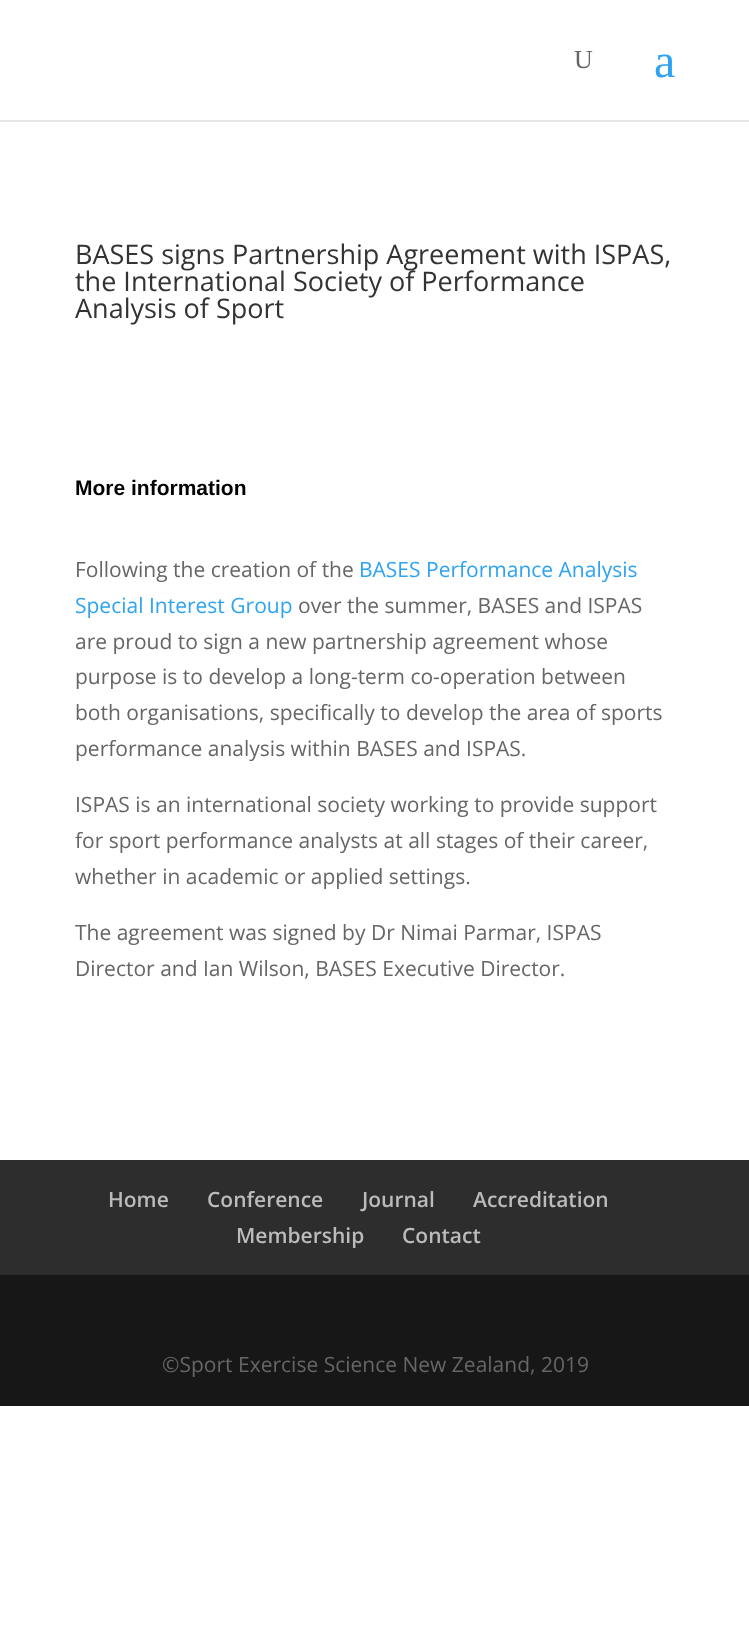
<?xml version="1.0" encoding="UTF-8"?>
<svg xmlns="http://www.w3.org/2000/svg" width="749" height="1633">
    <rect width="100%" height="100%" fill="#FFFFFF"/>
    <rect x="0" y="120" width="749" height="2" fill="#E6E6E6"/>
    <text x="574" y="68" font-family="Liberation Serif" font-size="26" fill="#666666">U</text>
    <text x="654" y="77" font-family="Liberation Serif" font-size="48" fill="#2EA3F2">a</text>
    <text font-family="Open Sans" font-size="27" fill="#333333">
        <tspan x="75" y="264">BASES signs Partnership Agreement with ISPAS,</tspan>
        <tspan x="75" y="291">the International Society of Performance</tspan>
        <tspan x="75" y="318">Analysis of Sport</tspan>
    </text>
    <text x="75" y="495" font-family="Liberation Sans" font-size="21" font-weight="700" fill="#000000">More information</text>
    <text x="75" y="577" font-family="Open Sans" font-size="21" fill="#666666">Following the creation of the</text>
    <text x="359" y="577" font-family="Open Sans" font-size="21" fill="#2EA3F2">BASES Performance Analysis</text>
    <text x="75" y="613" font-family="Open Sans" font-size="21" fill="#2EA3F2">Special Interest Group</text>
    <text x="298" y="613" font-family="Open Sans" font-size="21" fill="#666666">over the summer, BASES and ISPAS</text>
    <text font-family="Open Sans" font-size="21" fill="#666666">
        <tspan x="75" y="649">are proud to sign a new partnership agreement whose</tspan>
        <tspan x="75" y="684">purpose is to develop a long-term co-operation between</tspan>
        <tspan x="75" y="720">both organisations, specifically to develop the area of sports</tspan>
        <tspan x="75" y="756">performance analysis within BASES and ISPAS.</tspan>
    </text>
    <text font-family="Open Sans" font-size="21" fill="#666666">
        <tspan x="75" y="812">ISPAS is an international society working to provide support</tspan>
        <tspan x="75" y="848">for sport performance analysts at all stages of their career,</tspan>
        <tspan x="75" y="884">whether in academic or applied settings.</tspan>
    </text>
    <text font-family="Open Sans" font-size="21" fill="#666666">
        <tspan x="75" y="940">The agreement was signed by Dr Nimai Parmar, ISPAS</tspan>
        <tspan x="75" y="976">Director and Ian Wilson, BASES Executive Director.</tspan>
    </text>
    <rect x="0" y="1160" width="749" height="115" fill="#2D2D2D"/>
    <text x="108" y="1207" font-family="Open Sans" font-size="21" font-weight="600" fill="#BBBBBB">Home</text>
    <text x="207" y="1207" font-family="Open Sans" font-size="21" font-weight="600" fill="#BBBBBB">Conference</text>
    <text x="362" y="1207" font-family="Open Sans" font-size="21" font-weight="600" fill="#BBBBBB">Journal</text>
    <text x="473" y="1207" font-family="Open Sans" font-size="21" font-weight="600" fill="#BBBBBB">Accreditation</text>
    <text x="236" y="1243" font-family="Open Sans" font-size="21" font-weight="600" fill="#BBBBBB">Membership</text>
    <text x="402" y="1243" font-family="Open Sans" font-size="21" font-weight="600" fill="#BBBBBB">Contact</text>
    <rect x="0" y="1275" width="749" height="131" fill="#171717"/>
    <text x="162" y="1372" font-family="Open Sans" font-size="21" fill="#666666">©Sport Exercise Science New Zealand, 2019</text>
</svg>
